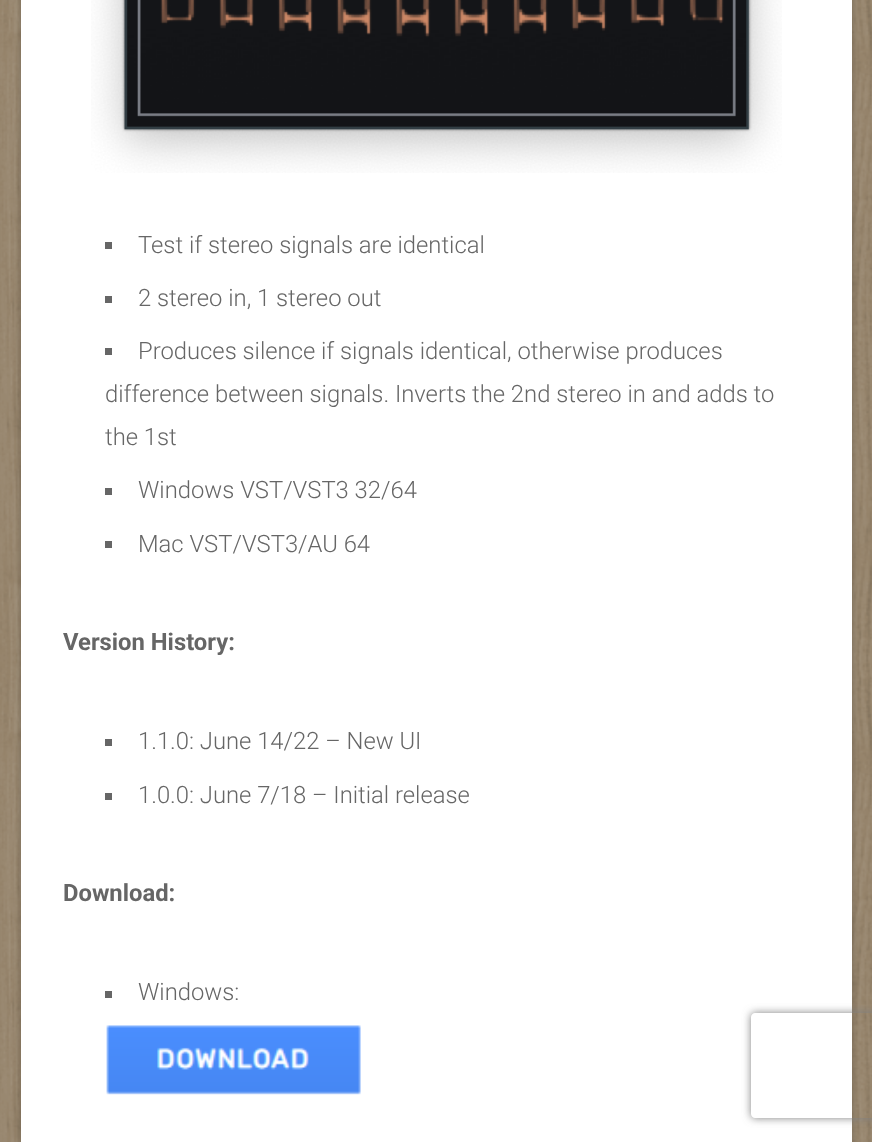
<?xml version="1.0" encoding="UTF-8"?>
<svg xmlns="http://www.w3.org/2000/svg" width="872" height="1142">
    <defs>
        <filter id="blur1" x="-50%" y="-200%" width="200%" height="500%"><feGaussianBlur stdDeviation="3.5"/></filter>
        <clipPath id="clip1"><path d="M 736 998 H 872 V 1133 H 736 Z M 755 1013 H 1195 C 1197 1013 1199 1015 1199 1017 V 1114 C 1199 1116 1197 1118 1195 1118 H 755 C 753 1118 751 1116 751 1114 V 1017 C 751 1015 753 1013 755 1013 Z" clip-rule="evenodd"/></clipPath>
        <filter id="blur2" x="-50%" y="-200%" width="200%" height="500%"><feGaussianBlur stdDeviation="4.5"/></filter>
    </defs>
    <rect width="100%" height="100%" fill="#FFFFFF"/>
    <image x="0" y="0" width="872" height="1142" href="img_01.png"/>
    <rect x="21" y="-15" width="831" height="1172" rx="4" fill="#000000" fill-opacity="0.24" filter="url(#blur1)"/>
    <rect x="21" y="0" width="831" height="1142" fill="#FFFFFF"/>
    <image x="91" y="0" width="691" height="173" href="img_02.png"/>
    <rect x="105" y="242" width="7" height="7" fill="#666666"/>
    <text x="138" y="253" font-family="Roboto" font-size="23.8" font-weight="300" fill="#666666">Test if stereo signals are identical</text>
    <rect x="105" y="296" width="7" height="7" fill="#666666"/>
    <text x="138" y="306" font-family="Roboto" font-size="23.8" font-weight="300" fill="#666666">2 stereo in, 1 stereo out</text>
    <rect x="105" y="348" width="7" height="7" fill="#666666"/>
    <text x="138" y="359" font-family="Roboto" font-size="23.8" font-weight="300" fill="#666666">Produces silence if signals identical, otherwise produces</text>
    <text font-family="Roboto" font-size="23.8" font-weight="300" fill="#666666">
        <tspan x="105" y="402">difference between signals. Inverts the 2nd stereo in and adds to</tspan>
        <tspan x="105" y="445">the 1st</tspan>
    </text>
    <rect x="105" y="488" width="7" height="7" fill="#666666"/>
    <text x="138" y="498" font-family="Roboto" font-size="23.8" font-weight="300" fill="#666666">Windows VST/VST3 32/64</text>
    <rect x="105" y="541" width="7" height="7" fill="#666666"/>
    <text x="138" y="552" font-family="Roboto" font-size="23.8" font-weight="300" fill="#666666">Mac VST/VST3/AU 64</text>
    <text x="63" y="650" font-family="Roboto" font-size="23.8" font-weight="700" fill="#666666">Version History:</text>
    <rect x="105" y="739" width="7" height="7" fill="#666666"/>
    <text x="138" y="749" font-family="Roboto" font-size="23.8" font-weight="300" fill="#666666">1.1.0: June 14/22 – New UI</text>
    <rect x="105" y="793" width="7" height="7" fill="#666666"/>
    <text x="138" y="803" font-family="Roboto" font-size="23.8" font-weight="300" fill="#666666">1.0.0: June 7/18 – Initial release</text>
    <text x="63" y="901" font-family="Roboto" font-size="23.8" font-weight="700" fill="#666666">Download:</text>
    <rect x="105" y="991" width="7" height="7" fill="#666666"/>
    <text x="138" y="1000" font-family="Roboto" font-size="23.8" font-weight="300" fill="#666666">Windows:</text>
    <image x="106" y="1025" width="255" height="70" href="img_03.png"/>
    <g clip-path="url(#clip1)">
        <rect x="751" y="1013" width="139" height="105" rx="4" fill="#808080" filter="url(#blur2)"/>
    </g>
</svg>
